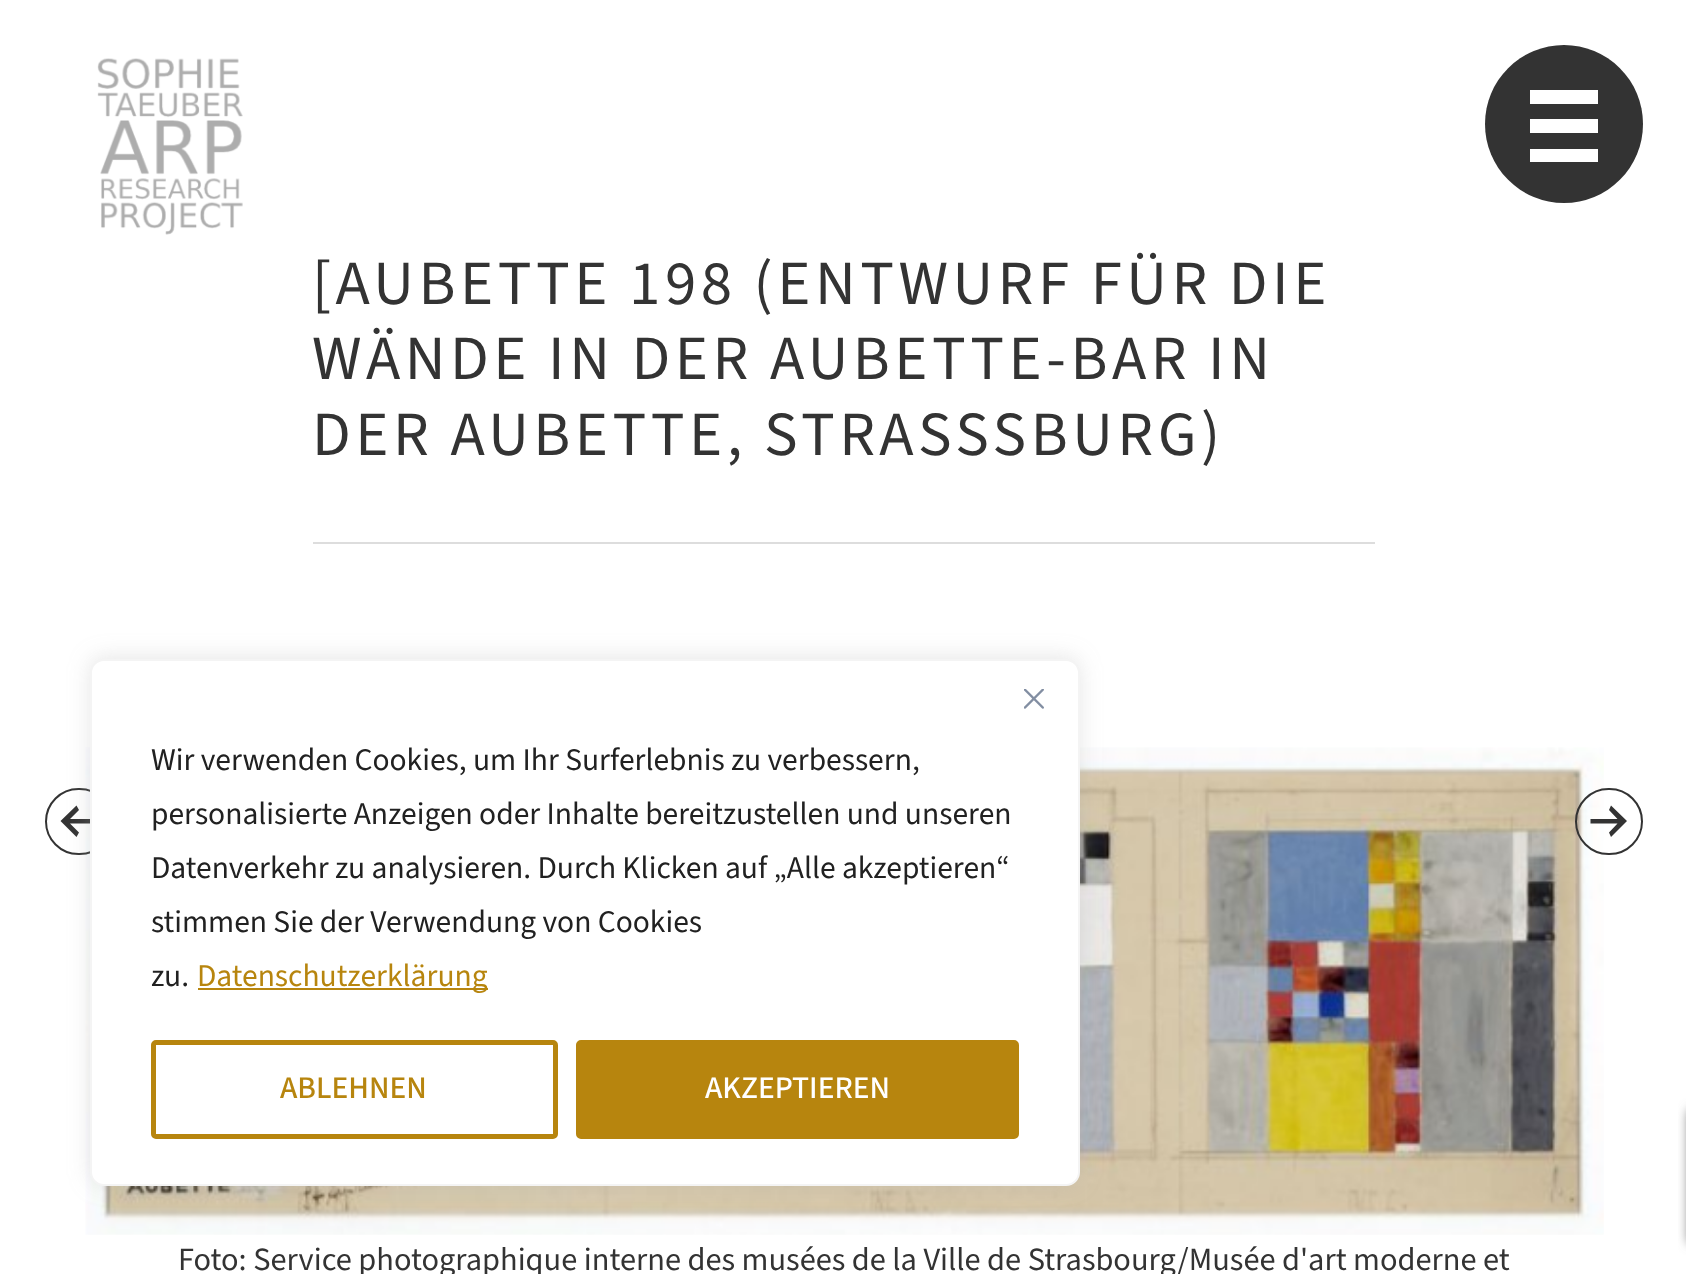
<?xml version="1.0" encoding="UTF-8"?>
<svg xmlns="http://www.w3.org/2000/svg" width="1686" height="1274">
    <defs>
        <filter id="blur1" x="-50%" y="-200%" width="200%" height="500%"><feGaussianBlur stdDeviation="11"/></filter>
        <filter id="blur2" x="-50%" y="-200%" width="200%" height="500%"><feGaussianBlur stdDeviation="5.5"/></filter>
    </defs>
    <rect width="100%" height="100%" fill="#FFFFFF"/>
    <image x="97" y="58" width="146" height="177" href="img_01.png"/>
    <circle cx="1564" cy="124" r="79" fill="#333333"/>
    <rect x="1530" y="90" width="68" height="14" fill="#FFFFFF"/>
    <rect x="1530" y="119" width="68" height="14" fill="#FFFFFF"/>
    <rect x="1530" y="149" width="68" height="13" fill="#FFFFFF"/>
    <rect x="313" y="542" width="1062" height="2" fill="#DDDDDD"/>
    <text font-family="'Source Sans 3'" font-size="63" letter-spacing="4.5" fill="#333333">
        <tspan x="312" y="304">[AUBETTE 198 (ENTWURF FÜR DIE</tspan>
        <tspan x="312" y="379">WÄNDE IN DER AUBETTE-BAR IN</tspan>
        <tspan x="312" y="455">DER AUBETTE, STRASSSBURG)</tspan>
    </text>
    <image x="85" y="747" width="1519" height="488" href="img_02.png"/>
    <rect x="46" y="789" width="66" height="65" rx="32.5" fill="none" stroke="#333333" stroke-width="2"/>
    <path d="M 97 819 V 823.5 H 70 L 79 832.5 L 76.5 837 L 60.5 821 L 76.5 805.5 L 79 810 L 70 819 Z" fill="#333333"/>
    <rect x="1576" y="789" width="66" height="65" rx="32.5" fill="none" stroke="#333333" stroke-width="2"/>
    <path d="M 1590.5 823.5 V 819 H 1617.5 L 1609 810 L 1611 805.5 L 1627 821 L 1611 837 L 1609 832.5 L 1617.5 823.5 Z" fill="#333333"/>
    <text x="178" y="1270" font-family="'Source Sans 3'" font-size="32.4" fill="#333333">Foto: Service photographique interne des musées de la Ville de Strasbourg/Musée d'art moderne et</text>
    <rect x="90" y="657" width="990" height="527" rx="14" fill="#ACABAB" fill-opacity="0.3" filter="url(#blur1)"/>
    <rect x="91" y="660" width="988" height="525" rx="13" fill="#FFFFFF" stroke="#F4F4F4" stroke-width="2"/>
    <image x="1024" y="689" width="20" height="20" href="img_03.png"/>
    <text font-family="'Source Sans 3'" font-size="31.5" fill="#212121">
        <tspan x="151" y="770">Wir verwenden Cookies, um Ihr Surferlebnis zu verbessern,</tspan>
        <tspan x="151" y="824">personalisierte Anzeigen oder Inhalte bereitzustellen und unseren</tspan>
        <tspan x="151" y="878">Datenverkehr zu analysieren. Durch Klicken auf „Alle akzeptieren“</tspan>
        <tspan x="151" y="932">stimmen Sie der Verwendung von Cookies</tspan>
        <tspan x="151" y="986">zu.</tspan>
    </text>
    <rect x="198" y="988" width="290" height="2" fill="#B7850E"/>
    <text x="197" y="986" font-family="'Source Sans 3'" font-size="31.5" fill="#B7850E">Datenschutzerklärung</text>
    <rect x="153.5" y="1042.5" width="402" height="94" rx="2.5" fill="none" stroke="#B7850E" stroke-width="5"/>
    <text x="280" y="1098" font-family="'Source Sans 3'" font-size="31.5" font-weight="500" fill="#B7850E">ABLEHNEN</text>
    <rect x="578.5" y="1042.5" width="438" height="94" rx="2.5" fill="#B7850E" stroke="#B7850E" stroke-width="5"/>
    <text x="705" y="1098" font-family="'Source Sans 3'" font-size="31.5" font-weight="500" fill="#FFFFFF">AKZEPTIEREN</text>
    <rect x="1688" y="1109" width="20" height="135" rx="5" fill="#808080" filter="url(#blur2)"/>
</svg>
